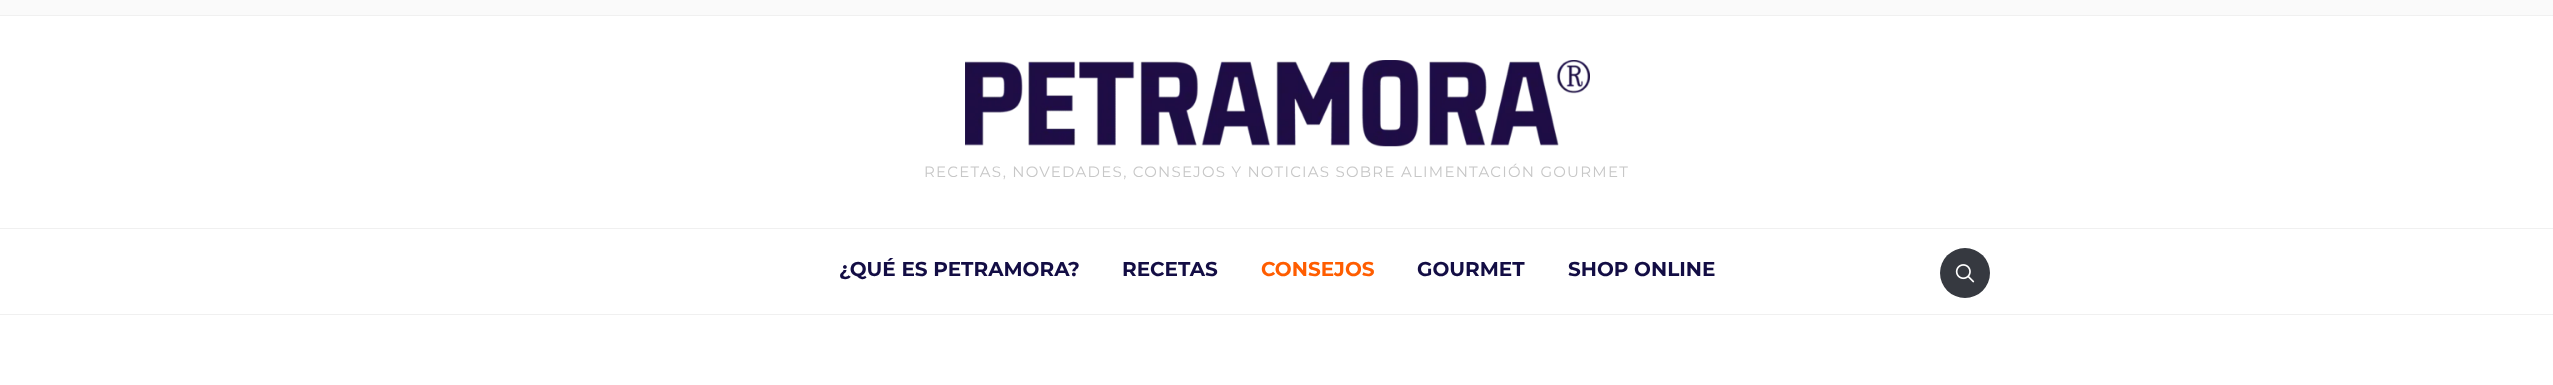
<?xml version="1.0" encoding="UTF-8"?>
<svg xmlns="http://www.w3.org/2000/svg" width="2553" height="385">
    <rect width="100%" height="100%" fill="#FFFFFF"/>
    <rect x="0" y="0" width="2553" height="15" fill="#FAFAFA"/>
    <rect x="0" y="15" width="2553" height="1" fill="#F0F0F0"/>
    <image x="965" y="60" width="625" height="87" href="img_01.png"/>
    <text x="924" y="177" font-family="Montserrat" font-size="15" letter-spacing="1.25" fill="#C7C7C7">RECETAS, NOVEDADES, CONSEJOS Y NOTICIAS SOBRE ALIMENTACIÓN GOURMET</text>
    <rect x="0" y="228" width="2553" height="1" fill="#F0F0F0"/>
    <rect x="0" y="314" width="2553" height="1" fill="#F0F0F0"/>
    <text x="839" y="276" font-family="Montserrat" font-size="20" font-weight="700" fill="#130D44">¿QUÉ ES PETRAMORA?</text>
    <text x="1122" y="276" font-family="Montserrat" font-size="20" font-weight="700" fill="#130D44">RECETAS</text>
    <text x="1261" y="276" font-family="Montserrat" font-size="20" font-weight="700" fill="#FF5D00">CONSEJOS</text>
    <text x="1417" y="276" font-family="Montserrat" font-size="20" font-weight="700" fill="#130D44">GOURMET</text>
    <text x="1568" y="276" font-family="Montserrat" font-size="20" font-weight="700" fill="#130D44">SHOP ONLINE</text>
    <circle cx="1965" cy="273" r="25" fill="#363940"/>
    <image x="1955" y="264" width="20" height="19" href="img_02.png"/>
</svg>
